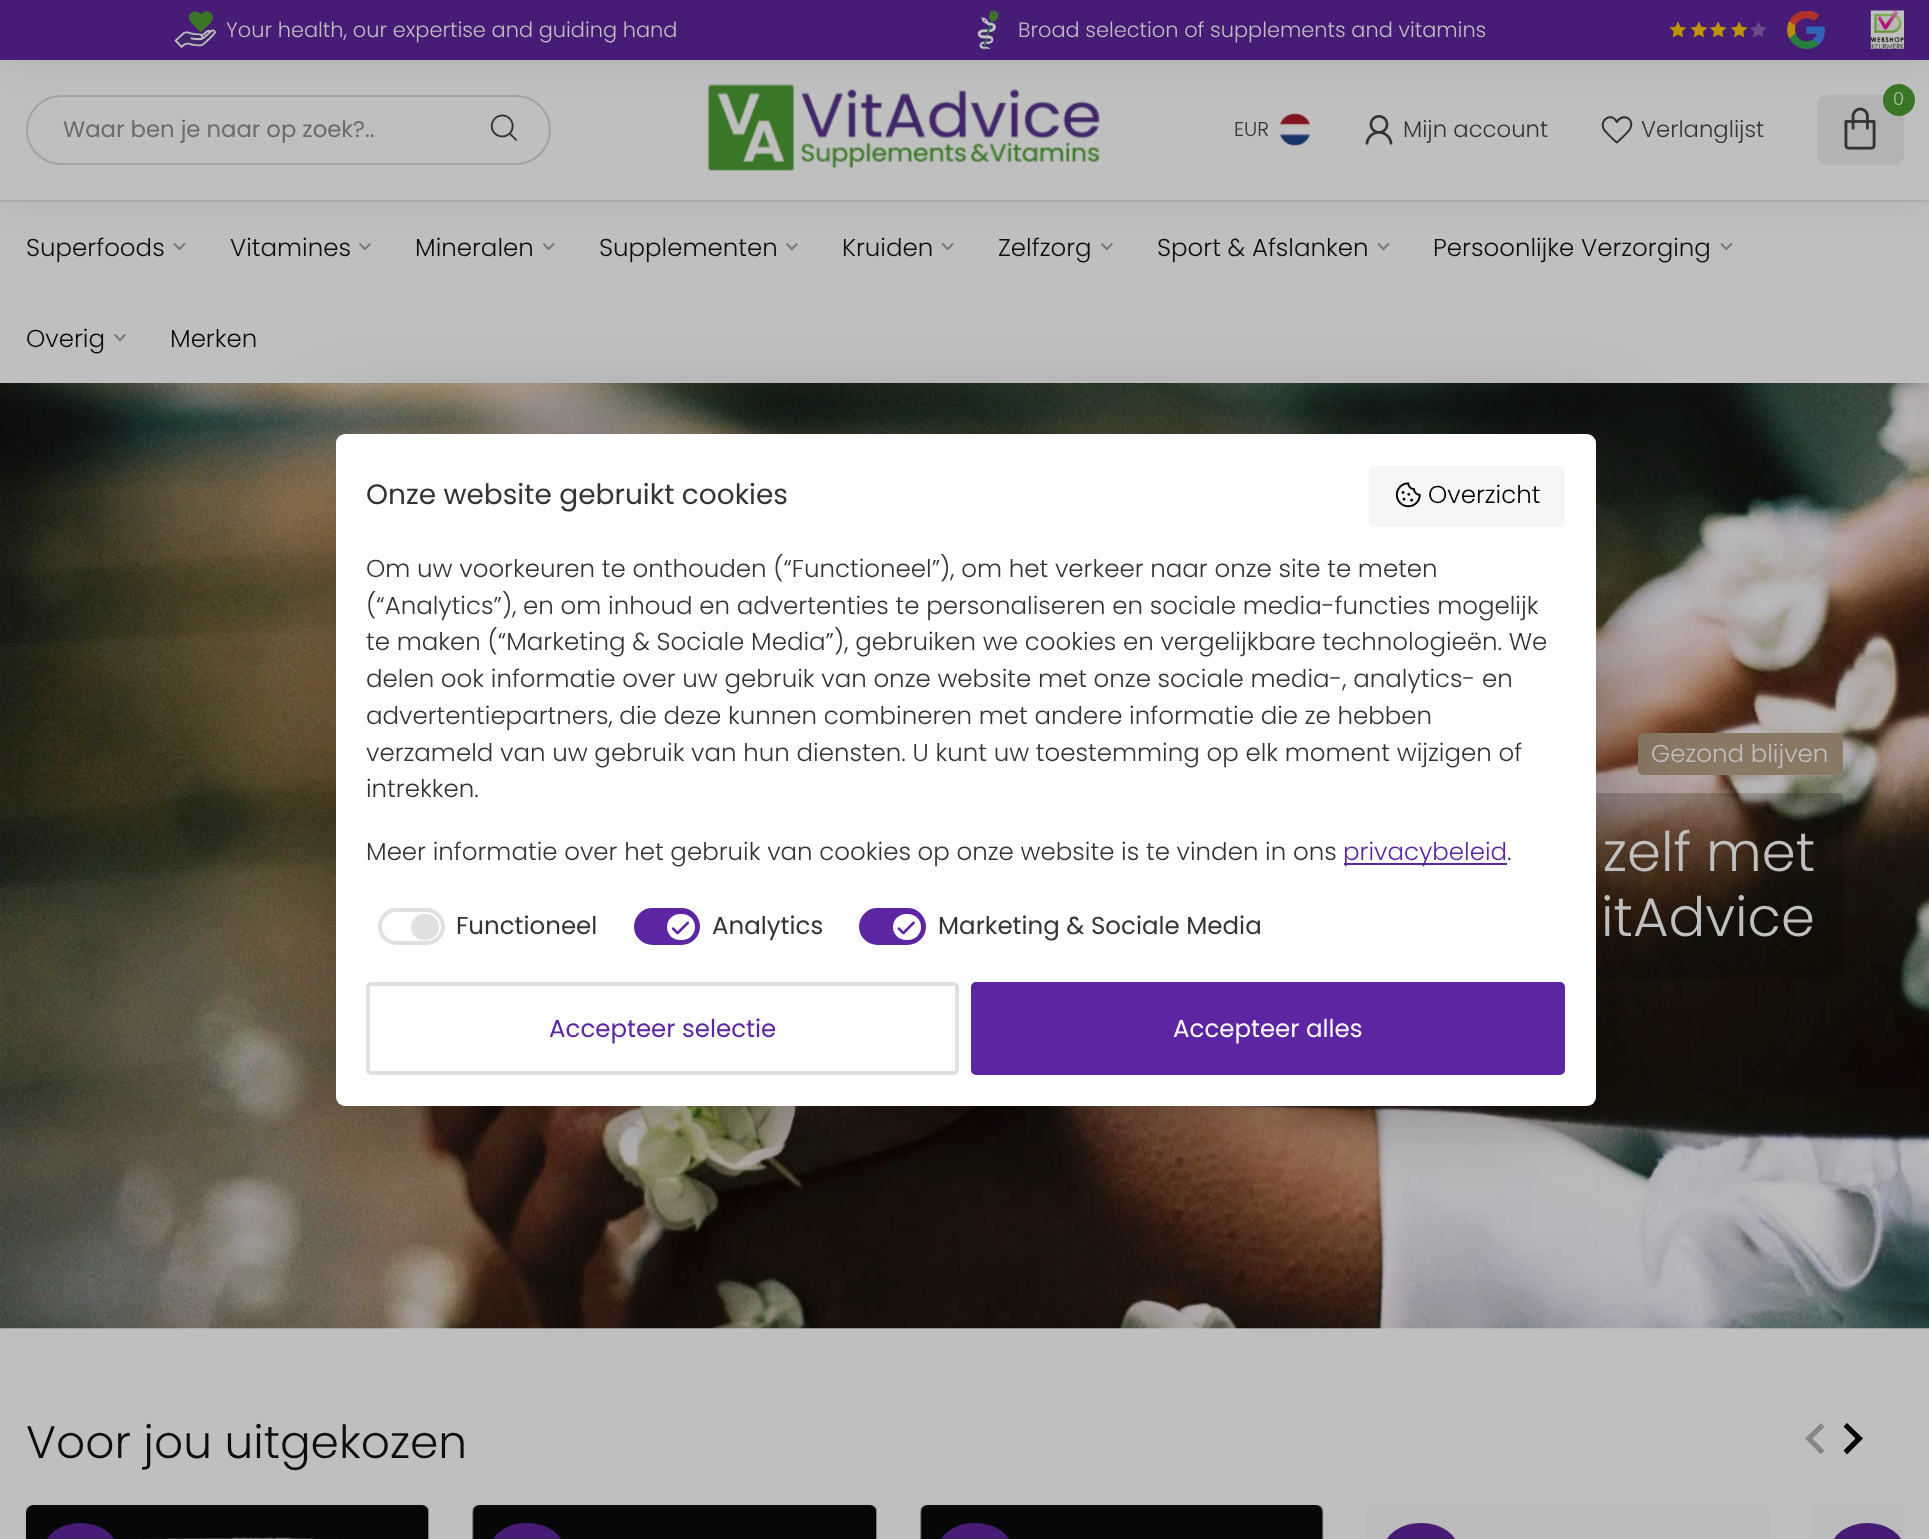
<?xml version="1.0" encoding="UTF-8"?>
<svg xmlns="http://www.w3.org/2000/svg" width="1929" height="1539">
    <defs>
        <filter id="blur1" x="-50%" y="-200%" width="200%" height="500%"><feGaussianBlur stdDeviation="19"/></filter>
        <filter id="blur2" x="-50%" y="-200%" width="200%" height="500%"><feGaussianBlur stdDeviation="45.5"/></filter>
    </defs>
    <rect width="100%" height="100%" fill="#BFBFBF"/>
    <rect x="0" y="200" width="1929" height="2" fill="#B3B3B3"/>
    <image x="173" y="243" width="13" height="8" href="img_14.png"/>
    <image x="358" y="243" width="13" height="8" href="img_15.png"/>
    <image x="542" y="243" width="13" height="8" href="img_16.png"/>
    <image x="785" y="243" width="13" height="8" href="img_15.png"/>
    <image x="941" y="243" width="13" height="8" href="img_16.png"/>
    <image x="1100" y="243" width="13" height="8" href="img_15.png"/>
    <image x="1377" y="243" width="13" height="8" href="img_14.png"/>
    <image x="1720" y="243" width="13" height="8" href="img_14.png"/>
    <rect x="0" y="0" width="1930" height="200" fill="#000000" fill-opacity="0.08" filter="url(#blur1)"/>
    <rect x="0" y="60" width="1929" height="140" fill="#BFBFBF"/>
    <rect x="0" y="0" width="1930" height="60" fill="#000000" fill-opacity="0.08" filter="url(#blur1)"/>
    <rect x="0" y="0" width="1929" height="60" fill="#471C77"/>
    <image x="174" y="11" width="42" height="38" href="img_01.png"/>
    <text x="226" y="37" font-family="Poppins" font-size="20.9" font-weight="300" fill="#BFBFBF">Your health, our expertise and guiding hand</text>
    <image x="977" y="10" width="22" height="40" href="img_02.png"/>
    <text x="1018" y="37" font-family="Poppins" font-size="20.9" font-weight="300" fill="#BFBFBF">Broad selection of supplements and vitamins</text>
    <image x="1669" y="21" width="18" height="17" href="img_03.png"/>
    <image x="1690" y="21" width="18" height="17" href="img_03.png"/>
    <image x="1709" y="21" width="18" height="17" href="img_04.png"/>
    <image x="1730" y="21" width="18" height="17" href="img_04.png"/>
    <image x="1750" y="21" width="17" height="17" href="img_05.png"/>
    <image x="1787" y="11" width="38" height="38" href="img_06.png"/>
    <image x="1870" y="10" width="34" height="39" href="img_07.png"/>
    <rect x="27" y="96" width="523" height="68" rx="34" fill="none" stroke="#A3A3A3" stroke-width="2"/>
    <text x="63" y="137" font-family="Poppins" font-size="22.75" fill="#6B6B6B">Waar ben je naar op zoek?..</text>
    <image x="490" y="114" width="27" height="27" href="img_08.png"/>
    <image x="707" y="84" width="393" height="88" href="img_09.png"/>
    <rect x="1817" y="95" width="87" height="70" rx="9" fill="#B3B3B3"/>
    <circle cx="1899" cy="100" r="16" fill="#397727"/>
    <text x="1893" y="105" font-family="Poppins" font-size="18" font-weight="300" fill="#BFBFBF">0</text>
    <image x="1844" y="107" width="32" height="43" href="img_10.png"/>
    <text x="1234" y="136" font-family="Poppins" font-size="20" font-weight="300" fill="#333333">EUR</text>
    <image x="1279" y="113" width="32" height="33" href="img_11.png"/>
    <image x="1365" y="115" width="28" height="30" href="img_12.png"/>
    <text x="1403" y="137" font-family="Poppins" font-size="22.75" font-weight="300" fill="#333333">Mijn account</text>
    <image x="1601" y="116" width="32" height="28" href="img_13.png"/>
    <text x="1641" y="137" font-family="Poppins" font-size="22.75" font-weight="300" fill="#333333">Verlanglijst</text>
    <text x="26" y="256" font-family="Poppins" font-size="24.5" font-weight="300" fill="#0E0E0E">Superfoods</text>
    <text x="230" y="256" font-family="Poppins" font-size="24.5" font-weight="300" fill="#0E0E0E">Vitamines</text>
    <text x="415" y="256" font-family="Poppins" font-size="24.5" font-weight="300" fill="#0E0E0E">Mineralen</text>
    <text x="599" y="256" font-family="Poppins" font-size="24.5" font-weight="300" fill="#0E0E0E">Supplementen</text>
    <text x="842" y="256" font-family="Poppins" font-size="24.5" font-weight="300" fill="#0E0E0E">Kruiden</text>
    <text x="998" y="256" font-family="Poppins" font-size="24.5" font-weight="300" fill="#0E0E0E">Zelfzorg</text>
    <text x="1157" y="256" font-family="Poppins" font-size="24.5" font-weight="300" fill="#0E0E0E">Sport &amp; Afslanken</text>
    <text x="1433" y="256" font-family="Poppins" font-size="24.5" font-weight="300" fill="#0E0E0E">Persoonlijke Verzorging</text>
    <text x="26" y="347" font-family="Poppins" font-size="24.5" font-weight="300" fill="#0E0E0E">Overig</text>
    <image x="113" y="334" width="13" height="8" href="img_15.png"/>
    <text x="170" y="347" font-family="Poppins" font-size="24.5" font-weight="300" fill="#0E0E0E">Merken</text>
    <image x="0" y="383" width="1929" height="946" href="img_20.png"/>
    <rect x="1638" y="733" width="205" height="42" rx="5" fill="#897864"/>
    <rect x="968" y="793" width="875" height="185" rx="4" fill="#000000" fill-opacity="0.18"/>
    <rect x="336" y="434" width="1260" height="672" rx="9" fill="#000000" fill-opacity="0.33" filter="url(#blur2)"/>
    <rect x="336" y="434" width="1260" height="672" rx="9" fill="#FFFFFF"/>
    <text x="366" y="504" font-family="Poppins" font-size="28" fill="#333333">Onze website gebruikt cookies</text>
    <rect x="1369" y="466" width="196" height="61" rx="5" fill="#F6F6F6"/>
    <image x="1395" y="482" width="26" height="26" href="img_17.png"/>
    <text x="1428" y="503" font-family="Poppins" font-size="24.5" font-weight="300" fill="#000000">Overzicht</text>
    <text font-family="Poppins" font-size="24.5" font-weight="300" fill="#333333">
        <tspan x="366" y="577">Om uw voorkeuren te onthouden (“Functioneel”), om het verkeer naar onze site te meten</tspan>
        <tspan x="366" y="614">(“Analytics”), en om inhoud en advertenties te personaliseren en sociale media-functies mogelijk</tspan>
        <tspan x="366" y="650">te maken (“Marketing &amp; Sociale Media”), gebruiken we cookies en vergelijkbare technologieën. We</tspan>
        <tspan x="366" y="687">delen ook informatie over uw gebruik van onze website met onze sociale media-, analytics- en</tspan>
        <tspan x="366" y="724">advertentiepartners, die deze kunnen combineren met andere informatie die ze hebben</tspan>
        <tspan x="366" y="761">verzameld van uw gebruik van hun diensten. U kunt uw toestemming op elk moment wijzigen of</tspan>
        <tspan x="366" y="797">intrekken.</tspan>
    </text>
    <text x="366" y="860" font-family="Poppins" font-size="24.5" font-weight="300" fill="#333333">Meer informatie over het gebruik van cookies op onze website is te vinden in ons</text>
    <rect x="1344" y="863" width="163" height="2" fill="#5C25A1"/>
    <text x="1343" y="860" font-family="Poppins" font-size="24.5" font-weight="300" fill="#5C25A1">privacybeleid</text>
    <text x="1507" y="860" font-family="Poppins" font-size="24.5" font-weight="300" fill="#333333">.</text>
    <rect x="380" y="910" width="63" height="33" rx="16.5" fill="none" stroke="#E0E0E0" stroke-width="4"/>
    <rect x="411" y="914" width="28" height="26" rx="13" fill="#E0E0E0"/>
    <text x="456" y="934" font-family="Poppins" font-size="24.5" fill="#333333">Functioneel</text>
    <rect x="636" y="910" width="62" height="33" rx="16.5" fill="#5C25A1" stroke="#5C25A1" stroke-width="4"/>
    <rect x="667" y="914" width="28" height="26" rx="13" fill="#FFFFFF"/>
    <image x="671" y="921" width="19" height="14" href="img_18.png"/>
    <text x="712" y="934" font-family="Poppins" font-size="24.5" fill="#333333">Analytics</text>
    <rect x="861" y="910" width="63" height="33" rx="16.5" fill="#5C25A1" stroke="#5C25A1" stroke-width="4"/>
    <rect x="893" y="914" width="28" height="26" rx="13" fill="#FFFFFF"/>
    <image x="897" y="921" width="18" height="14" href="img_19.png"/>
    <text x="938" y="934" font-family="Poppins" font-size="24.5" fill="#333333">Marketing &amp; Sociale Media</text>
    <rect x="368" y="984" width="589" height="89" rx="3" fill="none" stroke="#E0E0E0" stroke-width="4"/>
    <text x="549" y="1037" font-family="Poppins" font-size="24.5" fill="#5C25A1">Accepteer selectie</text>
    <rect x="973" y="984" width="590" height="89" rx="3" fill="#5C25A1" stroke="#5C25A1" stroke-width="4"/>
    <text x="1173" y="1037" font-family="Poppins" font-size="24.5" fill="#FFFFFF">Accepteer alles</text>
    <text x="1651" y="762" font-family="Poppins" font-size="24.5" font-weight="300" fill="#BFBFBF">Gezond blijven</text>
    <text x="1603" y="871" font-family="Poppins" font-size="54.5" font-weight="300" fill="#BFBFBF">zelf met</text>
    <text x="1601" y="936" font-family="Poppins" font-size="54.5" font-weight="300" fill="#BFBFBF">itAdvice</text>
    <text x="26" y="1458" font-family="Poppins" font-size="45.5" font-weight="300" fill="#0E0E0E">Voor jou uitgekozen</text>
    <path d="M 1821 1423 L 1824.5 1426.5 L 1812.5 1438.5 L 1824.5 1450.5 L 1821 1454.5 L 1805 1438.5 Z" fill="#868686"/>
    <path d="M 1847 1454.5 L 1843.5 1450.5 L 1855.5 1438.5 L 1843.5 1426.5 L 1847 1423 L 1863 1438.5 Z" fill="#000000"/>
    <image x="26" y="1505" width="404" height="34" href="img_21.png"/>
    <rect x="26" y="1505" width="403" height="34" fill="#747474" fill-opacity="0.06"/>
    <rect x="44" y="1523" width="73" height="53" rx="36.5" fill="#471C77"/>
    <image x="472" y="1505" width="406" height="34" href="img_22.png"/>
    <rect x="473" y="1505" width="404" height="34" fill="#747474" fill-opacity="0.06"/>
    <rect x="490" y="1523" width="74" height="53" rx="36.5" fill="#471C77"/>
    <image x="920" y="1505" width="404" height="34" href="img_23.png"/>
    <rect x="921" y="1505" width="402" height="34" fill="#747474" fill-opacity="0.06"/>
    <rect x="938" y="1523" width="74" height="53" rx="36.5" fill="#471C77"/>
    <path d="M 1374 1505 H 1762 C 1766 1505 1769 1508 1769 1512 V 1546 H 1367 V 1512 C 1367 1508 1370 1505 1374 1505 Z" fill="#BBBBBB"/>
    <rect x="1384" y="1523" width="74" height="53" rx="36.5" fill="#471C77"/>
    <path d="M 1820 1505 H 1904 V 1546 H 1813 V 1512 C 1813 1508 1816 1505 1820 1505 Z" fill="#BBBBBB"/>
    <rect x="1831" y="1523" width="73" height="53" rx="36.5" fill="#471C77"/>
</svg>
